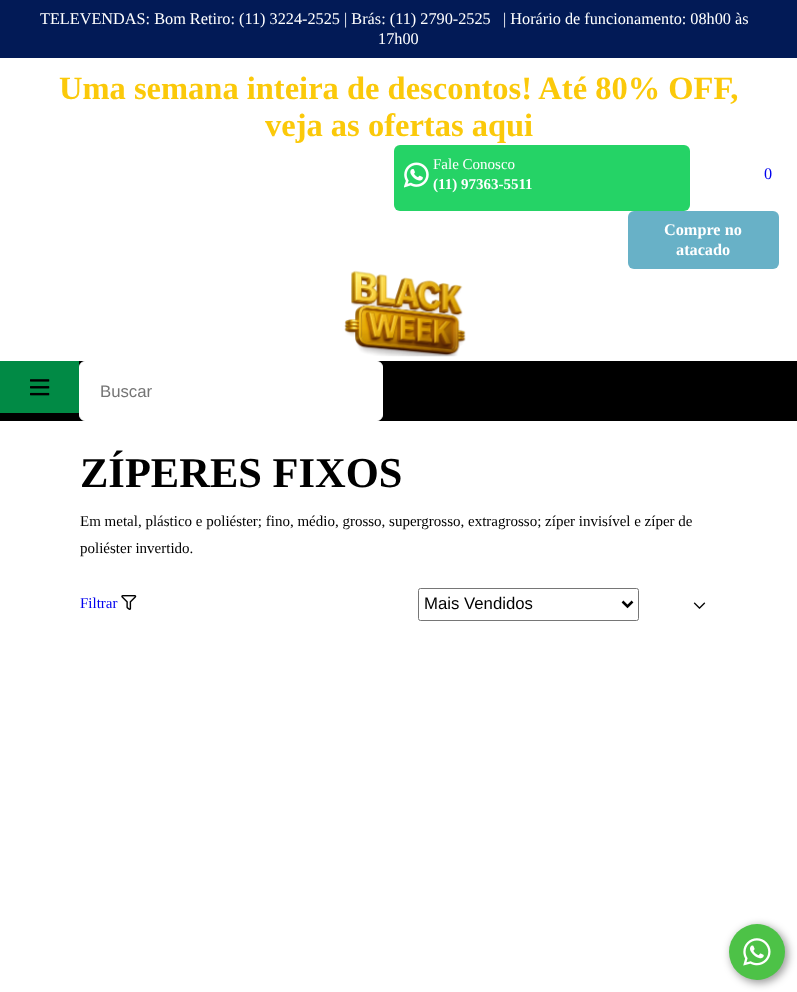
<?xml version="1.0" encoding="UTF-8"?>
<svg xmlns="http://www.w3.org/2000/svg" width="797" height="992">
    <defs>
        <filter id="blur1" x="-50%" y="-200%" width="200%" height="500%"><feGaussianBlur stdDeviation="4"/></filter>
    </defs>
    <rect width="100%" height="100%" fill="#FFFFFF"/>
    <rect x="0" y="0" width="797" height="58" fill="#021A56"/>
    <text x="40" y="24" font-family="Liberation Serif" font-size="16.25" fill="#FFFFFF">TELEVENDAS: Bom Retiro: (11) 3224-2525 | Brás: (11) 2790-2525 </text>
    <text x="503" y="24" font-family="Liberation Serif" font-size="16.25" fill="#FFFFFF">|   Horário de funcionamento: 08h00 às</text>
    <text x="378" y="44" font-family="Liberation Serif" font-size="16.25" fill="#FFFFFF">17h00</text>
    <text x="59" y="99" font-family="Liberation Serif" font-size="32.5" font-weight="700" fill="#FBC90A">Uma semana inteira de descontos! Até 80% OFF,</text>
    <text x="265" y="136" font-family="Liberation Serif" font-size="32.5" font-weight="700" fill="#FBC90A">veja as ofertas aqui</text>
    <rect x="394" y="145" width="296" height="66" rx="6" fill="#25D366"/>
    <image x="404" y="162" width="25" height="26" href="img_01.png"/>
    <text x="433" y="169" font-family="Liberation Serif" font-size="15" fill="#FFFFFF">Fale Conosco</text>
    <text x="433" y="189" font-family="Liberation Serif" font-size="15" font-weight="700" fill="#FFFFFF">(11) 97363-5511</text>
    <text x="764" y="179" font-family="Liberation Serif" font-size="16.25" fill="#0000EE">0</text>
    <rect x="628" y="211" width="151" height="58" rx="6" fill="#68B1C7"/>
    <text x="664" y="235" font-family="Liberation Serif" font-size="16.25" font-weight="700" fill="#FFFFFF">Compre no</text>
    <text x="676" y="255" font-family="Liberation Serif" font-size="16.25" font-weight="700" fill="#FFFFFF">atacado</text>
    <image x="344" y="270" width="122" height="87" href="img_02.png"/>
    <rect x="0" y="361" width="797" height="60" fill="#000000"/>
    <rect x="0" y="361" width="79" height="52" fill="#018A45"/>
    <image x="30" y="379" width="20" height="17" href="img_03.png"/>
    <rect x="79.5" y="361.5" width="303" height="59" rx="5.5" fill="#FFFFFF" stroke="#FFFFFF"/>
    <text x="100" y="397" font-family="Liberation Sans" font-size="16.75" fill="#757575">Buscar</text>
    <text x="80" y="487" font-family="Liberation Serif" font-size="42.5" font-weight="700" fill="#000000">ZÍPERES FIXOS</text>
    <text font-family="Liberation Serif" font-size="15" fill="#000000">
        <tspan x="80" y="526">Em metal, plástico e poliéster; fino, médio, grosso, supergrosso, extragrosso; zíper invisível e zíper de</tspan>
        <tspan x="80" y="553">poliéster invertido.</tspan>
    </text>
    <text x="80" y="608" font-family="Liberation Serif" font-size="15" fill="#0000EE">Filtrar</text>
    <image x="121" y="595" width="16" height="15" href="img_04.png"/>
    <rect x="418.5" y="588.5" width="220" height="32" rx="2" fill="none" stroke="#767676"/>
    <path d="M 622.5 601.5 L 627.5 606.5 L 632.5 601.5" fill="none" stroke="#000000" stroke-width="2.5"/>
    <text x="424" y="609" font-family="Liberation Sans" font-size="16.75" fill="#000000">Mais Vendidos</text>
    <image x="693" y="602" width="13" height="7" href="img_05.png"/>
    <rect x="731" y="926" width="57" height="57" rx="28.5" fill="#000000" fill-opacity="0.4" filter="url(#blur1)"/>
    <circle cx="757" cy="952" r="28" fill="#4DC247"/>
    <image x="743" y="938" width="28" height="28" href="img_06.png"/>
</svg>
